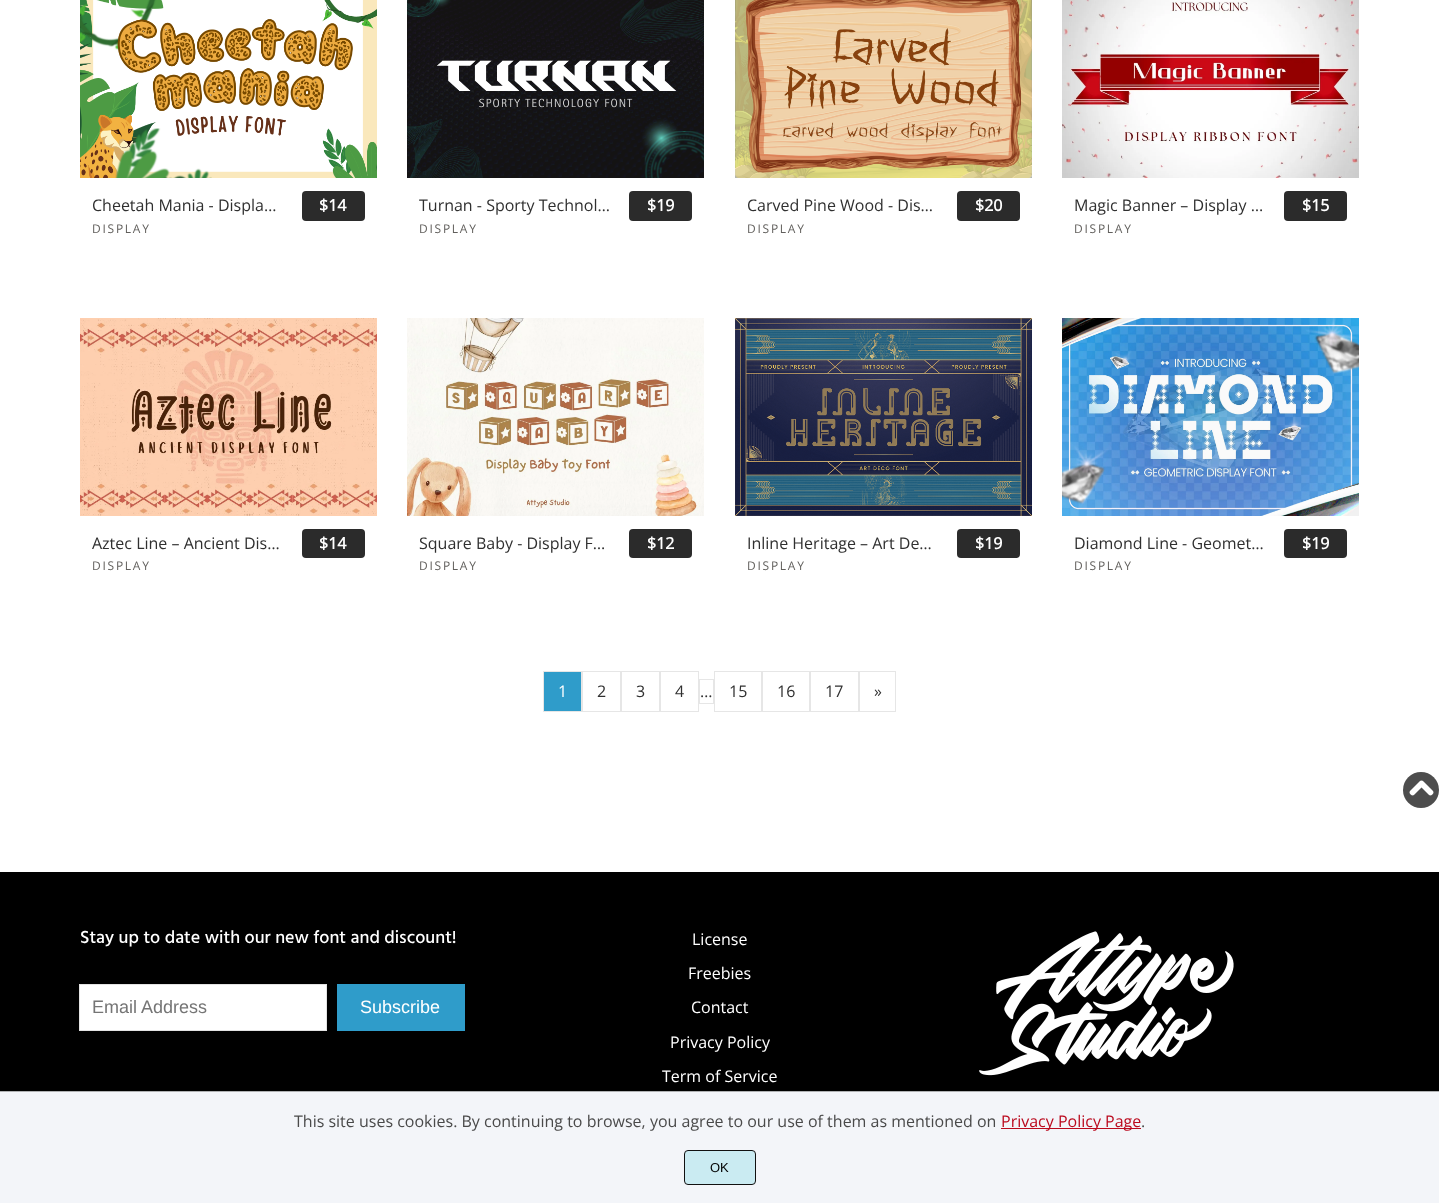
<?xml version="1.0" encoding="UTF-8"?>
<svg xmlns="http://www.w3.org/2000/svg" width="1439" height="1203">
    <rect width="100%" height="100%" fill="#FFFFFF"/>
    <image x="80" y="0" width="297" height="178" href="img_01.png"/>
    <text x="92" y="211" font-family="Open Sans" font-size="16" fill="#303030">Cheetah Mania - Displa…</text>
    <text x="92" y="233" font-family="Open Sans" font-size="12" letter-spacing="1.75" fill="#615F5C">DISPLAY</text>
    <rect x="302" y="191" width="63" height="30" rx="4" fill="#2B2B2B"/>
    <text x="319" y="211" font-family="Open Sans" font-size="16" font-weight="700" fill="#FFFFFF">$14</text>
    <image x="407" y="0" width="297" height="178" href="img_02.png"/>
    <text x="419" y="211" font-family="Open Sans" font-size="16" fill="#303030">Turnan - Sporty Technol…</text>
    <text x="419" y="233" font-family="Open Sans" font-size="12" letter-spacing="1.75" fill="#615F5C">DISPLAY</text>
    <rect x="629" y="191" width="63" height="30" rx="4" fill="#2B2B2B"/>
    <text x="647" y="211" font-family="Open Sans" font-size="16" font-weight="700" fill="#FFFFFF">$19</text>
    <image x="735" y="0" width="297" height="178" href="img_03.png"/>
    <text x="747" y="211" font-family="Open Sans" font-size="16" fill="#303030">Carved Pine Wood - Dis…</text>
    <text x="747" y="233" font-family="Open Sans" font-size="12" letter-spacing="1.75" fill="#615F5C">DISPLAY</text>
    <rect x="957" y="191" width="63" height="30" rx="4" fill="#2B2B2B"/>
    <text x="975" y="211" font-family="Open Sans" font-size="16" font-weight="700" fill="#FFFFFF">$20</text>
    <image x="1062" y="0" width="297" height="178" href="img_04.png"/>
    <text x="1074" y="211" font-family="Open Sans" font-size="16" fill="#303030">Magic Banner – Display …</text>
    <text x="1074" y="233" font-family="Open Sans" font-size="12" letter-spacing="1.75" fill="#615F5C">DISPLAY</text>
    <rect x="1284" y="191" width="63" height="30" rx="4" fill="#2B2B2B"/>
    <text x="1302" y="211" font-family="Open Sans" font-size="16" font-weight="700" fill="#FFFFFF">$15</text>
    <image x="80" y="318" width="297" height="198" href="img_05.png"/>
    <text x="92" y="549" font-family="Open Sans" font-size="16" fill="#303030">Aztec Line – Ancient Dis…</text>
    <text x="92" y="570" font-family="Open Sans" font-size="12" letter-spacing="1.75" fill="#615F5C">DISPLAY</text>
    <rect x="302" y="529" width="63" height="29" rx="4" fill="#2B2B2B"/>
    <text x="319" y="549" font-family="Open Sans" font-size="16" font-weight="700" fill="#FFFFFF">$14</text>
    <image x="407" y="318" width="297" height="198" href="img_06.png"/>
    <text x="419" y="549" font-family="Open Sans" font-size="16" fill="#303030">Square Baby - Display F…</text>
    <text x="419" y="570" font-family="Open Sans" font-size="12" letter-spacing="1.75" fill="#615F5C">DISPLAY</text>
    <rect x="629" y="529" width="63" height="29" rx="4" fill="#2B2B2B"/>
    <text x="647" y="549" font-family="Open Sans" font-size="16" font-weight="700" fill="#FFFFFF">$12</text>
    <image x="735" y="318" width="297" height="198" href="img_07.png"/>
    <text x="747" y="549" font-family="Open Sans" font-size="16" fill="#303030">Inline Heritage – Art De…</text>
    <text x="747" y="570" font-family="Open Sans" font-size="12" letter-spacing="1.75" fill="#615F5C">DISPLAY</text>
    <rect x="957" y="529" width="63" height="29" rx="4" fill="#2B2B2B"/>
    <text x="975" y="549" font-family="Open Sans" font-size="16" font-weight="700" fill="#FFFFFF">$19</text>
    <image x="1062" y="318" width="297" height="198" href="img_08.png"/>
    <text x="1074" y="549" font-family="Open Sans" font-size="16" fill="#303030">Diamond Line - Geomet…</text>
    <text x="1074" y="570" font-family="Open Sans" font-size="12" letter-spacing="1.75" fill="#615F5C">DISPLAY</text>
    <rect x="1284" y="529" width="63" height="29" rx="4" fill="#2B2B2B"/>
    <text x="1302" y="549" font-family="Open Sans" font-size="16" font-weight="700" fill="#FFFFFF">$19</text>
    <rect x="543.5" y="671.5" width="38" height="40" fill="none" stroke="#E6E6E6"/>
    <rect x="544" y="672" width="37" height="39" fill="#2F9CCA"/>
    <text x="558" y="697" font-family="Open Sans" font-size="16" fill="#FFFFFF">1</text>
    <rect x="582.5" y="671.5" width="38" height="40" fill="none" stroke="#E6E6E6"/>
    <text x="597" y="697" font-family="Open Sans" font-size="16" fill="#303030">2</text>
    <rect x="621.5" y="671.5" width="38" height="40" fill="none" stroke="#E6E6E6"/>
    <text x="636" y="697" font-family="Open Sans" font-size="16" fill="#303030">3</text>
    <rect x="660.5" y="671.5" width="38" height="40" fill="none" stroke="#E6E6E6"/>
    <text x="675" y="697" font-family="Open Sans" font-size="16" fill="#303030">4</text>
    <rect x="699.5" y="679.5" width="14" height="24" fill="none" stroke="#E6E6E6"/>
    <text x="700" y="697" font-family="Open Sans" font-size="16" fill="#303030">…</text>
    <rect x="714.5" y="671.5" width="47" height="40" fill="none" stroke="#E6E6E6"/>
    <text x="729" y="697" font-family="Open Sans" font-size="16" fill="#303030">15</text>
    <rect x="762.5" y="671.5" width="47" height="40" fill="none" stroke="#E6E6E6"/>
    <text x="777" y="697" font-family="Open Sans" font-size="16" fill="#303030">16</text>
    <rect x="810.5" y="671.5" width="48" height="40" fill="none" stroke="#E6E6E6"/>
    <text x="825" y="697" font-family="Open Sans" font-size="16" fill="#303030">17</text>
    <rect x="859.5" y="671.5" width="36" height="40" fill="none" stroke="#E6E6E6"/>
    <text x="874" y="697" font-family="Open Sans" font-size="16" fill="#303030">»</text>
    <circle cx="1421" cy="790" r="18" fill="#4D4D4D"/>
    <image x="1409" y="780" width="25" height="16" href="img_09.png"/>
    <rect x="0" y="872" width="1439" height="219" fill="#000000"/>
    <text x="80" y="943" font-family="Hind Guntur" font-size="18" font-weight="500" fill="#FFFFFF">Stay up to date with our new font and discount!</text>
    <rect x="79.5" y="984.5" width="247" height="46" fill="none" stroke="#E3E3E3"/>
    <rect x="80" y="985" width="246" height="45" fill="#FFFFFF"/>
    <text x="92" y="1013" font-family="Liberation Sans" font-size="18" fill="#757575">Email Address</text>
    <rect x="337.5" y="984.5" width="127" height="46" fill="none" stroke="#2F9CCA"/>
    <rect x="338" y="985" width="126" height="45" fill="#2F9CCA"/>
    <text x="360" y="1013" font-family="Liberation Sans" font-size="18" fill="#FFFFFF">Subscribe</text>
    <text x="692" y="945" font-family="Open Sans" font-size="16" fill="#FFFFFF">License</text>
    <text x="688" y="979" font-family="Open Sans" font-size="16" fill="#FFFFFF">Freebies</text>
    <text x="691" y="1013" font-family="Open Sans" font-size="16" fill="#FFFFFF">Contact</text>
    <text x="670" y="1048" font-family="Open Sans" font-size="16" fill="#FFFFFF">Privacy Policy</text>
    <text x="662" y="1082" font-family="Open Sans" font-size="16" fill="#FFFFFF">Term of Service</text>
    <image x="979" y="931" width="255" height="145" href="img_10.png"/>
    <rect x="0" y="1092" width="1439" height="111" fill="#F3F5F9"/>
    <rect x="0" y="1091" width="1439" height="1" fill="#AFB1B3"/>
    <text x="294" y="1127" font-family="Open Sans" font-size="16" fill="#4A4A4A">This site uses cookies. By continuing to browse, you agree to our use of them as mentioned on</text>
    <rect x="1001" y="1128" width="140" height="1" fill="#BB0A1E"/>
    <text x="1001" y="1127" font-family="Open Sans" font-size="16" fill="#BB0A1E">Privacy Policy Page</text>
    <text x="1141" y="1127" font-family="Open Sans" font-size="16" fill="#4A4A4A">.</text>
    <rect x="684.5" y="1150.5" width="71" height="34" rx="3.5" fill="#CAEBF2" stroke="#111111"/>
    <text x="710" y="1172" font-family="Liberation Sans" font-size="13" fill="#000000">OK</text>
</svg>
